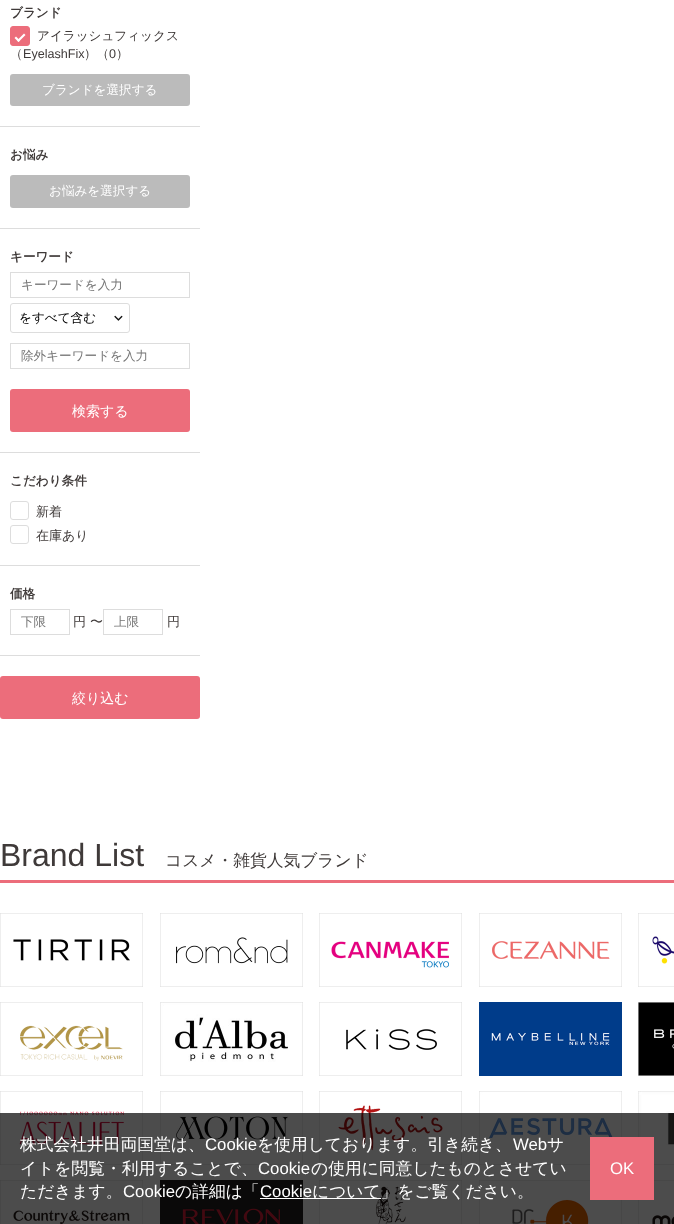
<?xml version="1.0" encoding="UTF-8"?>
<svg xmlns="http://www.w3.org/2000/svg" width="674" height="1224">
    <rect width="100%" height="100%" fill="#FFFFFF"/>
    <rect x="0" y="126" width="200" height="1" fill="#DDDDDD"/>
    <text x="10" y="17" font-family="WenQuanYi Zen Hei" font-size="12.6" font-weight="700" fill="#3F3A39">ブランド</text>
    <rect x="10.5" y="26.5" width="19" height="19" rx="2.5" fill="#EC6D7B" stroke="#EC6D7B"/>
    <text x="37" y="40" font-family="WenQuanYi Zen Hei" font-size="12.6" font-weight="500" fill="#3F3A39">アイラッシュフィックス</text>
    <path d="M 24 33.5 L 25.5 35 L 18.5 42 L 17 40.5 Z" fill="#FFFFFF"/>
    <path d="M 16 36.5 L 20 40.5 L 18.5 42 L 14.5 38 Z" fill="#FFFFFF"/>
    <text x="10" y="58" font-family="WenQuanYi Zen Hei" font-size="12.6" font-weight="500" fill="#3F3A39">（</text>
    <text x="23" y="58" font-family="Liberation Sans" font-size="12.6" fill="#3F3A39">EyelashFix</text>
    <text x="84" y="58" font-family="WenQuanYi Zen Hei" font-size="12.6" font-weight="500" fill="#3F3A39">）（</text>
    <text x="109" y="58" font-family="Liberation Sans" font-size="12.6" fill="#3F3A39">0</text>
    <text x="116" y="58" font-family="WenQuanYi Zen Hei" font-size="12.6" font-weight="500" fill="#3F3A39">）</text>
    <rect x="10" y="74" width="180" height="32" rx="3" fill="#BBBBBB"/>
    <text x="42" y="94" font-family="WenQuanYi Zen Hei" font-size="12.6" font-weight="500" fill="#FFFFFF">ブランドを選択する</text>
    <rect x="0" y="228" width="200" height="1" fill="#DDDDDD"/>
    <text x="10" y="159" font-family="WenQuanYi Zen Hei" font-size="12.6" font-weight="700" fill="#3F3A39">お悩み</text>
    <rect x="10" y="175" width="180" height="33" rx="3" fill="#BBBBBB"/>
    <text x="49" y="195" font-family="WenQuanYi Zen Hei" font-size="12.6" font-weight="500" fill="#FFFFFF">お悩みを選択する</text>
    <rect x="0" y="452" width="200" height="1" fill="#DDDDDD"/>
    <text x="10" y="261" font-family="WenQuanYi Zen Hei" font-size="12.6" font-weight="700" fill="#3F3A39">キーワード</text>
    <rect x="10.5" y="272.5" width="179" height="25" fill="none" stroke="#DDDDDD"/>
    <text x="21" y="289" font-family="WenQuanYi Zen Hei" font-size="12.6" font-weight="500" fill="#757575">キーワードを入力</text>
    <rect x="10.5" y="303.5" width="119" height="29" rx="2.5" fill="none" stroke="#DDDDDD"/>
    <text x="19" y="322" font-family="WenQuanYi Zen Hei" font-size="12.6" font-weight="500" fill="#000000">をすべて含む</text>
    <image x="114" y="315" width="9" height="6" href="img_01.png"/>
    <rect x="10.5" y="343.5" width="179" height="25" fill="none" stroke="#DDDDDD"/>
    <text x="21" y="360" font-family="WenQuanYi Zen Hei" font-size="12.6" font-weight="500" fill="#757575">除外キーワードを入力</text>
    <rect x="10" y="389" width="180" height="43" rx="3" fill="#EC6D7B"/>
    <text x="72" y="416" font-family="WenQuanYi Zen Hei" font-size="14" font-weight="500" fill="#FFFFFF">検索する</text>
    <rect x="0" y="565" width="200" height="1" fill="#DDDDDD"/>
    <text x="10" y="485" font-family="WenQuanYi Zen Hei" font-size="12.6" font-weight="700" fill="#3F3A39">こだわり条件</text>
    <rect x="10.5" y="501.5" width="18" height="18" rx="2.5" fill="none" stroke="#DDDDDD"/>
    <text x="36" y="516" font-family="WenQuanYi Zen Hei" font-size="13" font-weight="500" fill="#3F3A39">新着</text>
    <rect x="10.5" y="525.5" width="18" height="18" rx="2.5" fill="none" stroke="#DDDDDD"/>
    <text x="36" y="540" font-family="WenQuanYi Zen Hei" font-size="13" font-weight="500" fill="#3F3A39">在庫あり</text>
    <rect x="0" y="655" width="200" height="1" fill="#DDDDDD"/>
    <text x="10" y="598" font-family="WenQuanYi Zen Hei" font-size="12.6" font-weight="700" fill="#3F3A39">価格</text>
    <rect x="10.5" y="609.5" width="59" height="25" fill="none" stroke="#DDDDDD"/>
    <text x="21" y="626" font-family="WenQuanYi Zen Hei" font-size="12.6" font-weight="500" fill="#757575">下限</text>
    <text x="73" y="626" font-family="WenQuanYi Zen Hei" font-size="13" font-weight="500" fill="#3F3A39">円 〜</text>
    <rect x="103.5" y="609.5" width="59" height="25" fill="none" stroke="#DDDDDD"/>
    <text x="114" y="626" font-family="WenQuanYi Zen Hei" font-size="12.6" font-weight="500" fill="#757575">上限</text>
    <text x="167" y="626" font-family="WenQuanYi Zen Hei" font-size="13" font-weight="500" fill="#3F3A39">円</text>
    <rect x="0" y="676" width="200" height="43" rx="3" fill="#EC6D7B"/>
    <text x="72" y="703" font-family="WenQuanYi Zen Hei" font-size="14" font-weight="500" fill="#FFFFFF">絞り込む</text>
    <rect x="0" y="880" width="674" height="3" fill="#EC6D7B"/>
    <text x="0" y="866" font-family="Liberation Sans" font-size="32" fill="#3F3A39">Brand List</text>
    <text x="165" y="866" font-family="WenQuanYi Zen Hei" font-size="16.75" font-weight="500" fill="#3F3A39">コスメ・雑貨人気ブランド</text>
    <image x="0" y="913" width="143" height="74" href="img_02.png"/>
    <image x="160" y="913" width="143" height="74" href="img_03.png"/>
    <image x="319" y="913" width="143" height="74" href="img_04.png"/>
    <image x="479" y="913" width="143" height="74" href="img_05.png"/>
    <image x="638" y="913" width="36" height="74" href="img_06.png"/>
    <image x="0" y="1002" width="143" height="74" href="img_07.png"/>
    <image x="160" y="1002" width="143" height="74" href="img_08.png"/>
    <image x="319" y="1002" width="143" height="74" href="img_09.png"/>
    <image x="479" y="1002" width="143" height="74" href="img_10.png"/>
    <image x="638" y="1002" width="36" height="74" href="img_11.png"/>
    <image x="0" y="1091" width="143" height="74" href="img_12.png"/>
    <image x="160" y="1091" width="143" height="74" href="img_13.png"/>
    <image x="319" y="1091" width="143" height="74" href="img_14.png"/>
    <image x="479" y="1091" width="143" height="74" href="img_15.png"/>
    <image x="638" y="1091" width="36" height="74" href="img_16.png"/>
    <image x="0" y="1180" width="143" height="44" href="img_17.png"/>
    <image x="160" y="1180" width="143" height="44" href="img_18.png"/>
    <image x="319" y="1180" width="143" height="44" href="img_19.png"/>
    <image x="479" y="1180" width="143" height="44" href="img_20.png"/>
    <image x="638" y="1180" width="36" height="44" href="img_21.png"/>
    <rect x="0" y="1113" width="674" height="111" fill="#000000" fill-opacity="0.7"/>
    <text x="20" y="1150" font-family="WenQuanYi Zen Hei" font-size="16.75" font-weight="500" fill="#FFFFFF">株式会社井田両国堂は、</text>
    <text x="205" y="1150" font-family="Liberation Sans" font-size="16.75" fill="#FFFFFF">Cookie</text>
    <text x="257" y="1150" font-family="WenQuanYi Zen Hei" font-size="16.75" font-weight="500" fill="#FFFFFF">を使用しております。引き続き、</text>
    <text x="513" y="1150" font-family="Liberation Sans" font-size="16.75" fill="#FFFFFF">Web</text>
    <text x="547" y="1150" font-family="WenQuanYi Zen Hei" font-size="16.75" font-weight="500" fill="#FFFFFF">サ</text>
    <text x="20" y="1174" font-family="WenQuanYi Zen Hei" font-size="16.75" font-weight="500" fill="#FFFFFF">イトを閲覧・利用することで、</text>
    <text x="258" y="1174" font-family="Liberation Sans" font-size="16.75" fill="#FFFFFF">Cookie</text>
    <text x="311" y="1174" font-family="WenQuanYi Zen Hei" font-size="16.75" font-weight="500" fill="#FFFFFF">の使用に同意したものとさせてい</text>
    <text x="20" y="1197" font-family="WenQuanYi Zen Hei" font-size="16.75" font-weight="500" fill="#FFFFFF">ただきます。</text>
    <text x="123" y="1197" font-family="Liberation Sans" font-size="16.75" fill="#FFFFFF">Cookie</text>
    <text x="175" y="1197" font-family="WenQuanYi Zen Hei" font-size="16.75" font-weight="500" fill="#FFFFFF">の詳細は「</text>
    <text x="260" y="1197" font-family="Liberation Sans" font-size="16.75" fill="#FFFFFF">Cookie</text>
    <rect x="260" y="1198" width="121" height="1" fill="#FFFFFF"/>
    <text x="312" y="1197" font-family="WenQuanYi Zen Hei" font-size="16.75" font-weight="500" fill="#FFFFFF">について」をご覧ください。</text>
    <rect x="590" y="1137" width="64" height="63" fill="#EC6D7B"/>
    <text x="610" y="1174" font-family="Liberation Sans" font-size="16.75" fill="#FFFFFF">OK</text>
</svg>
